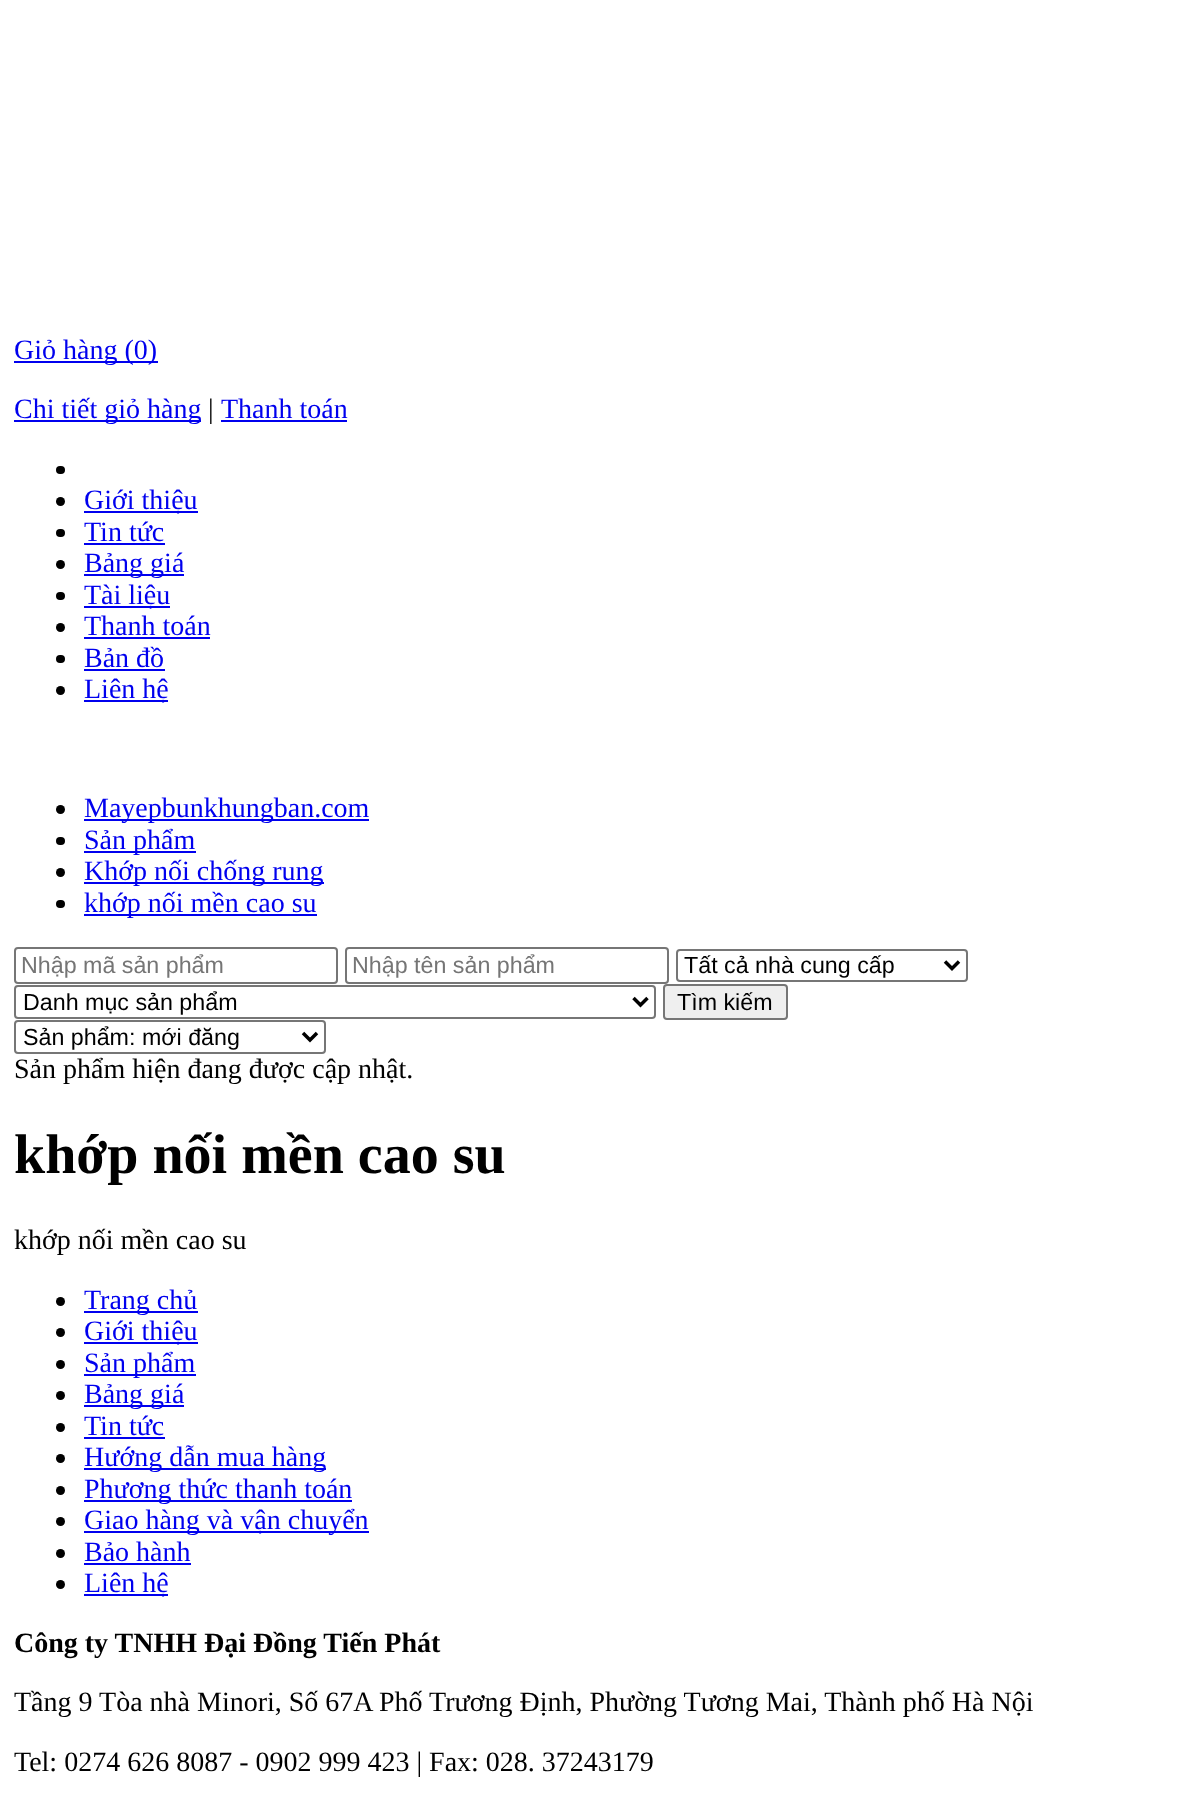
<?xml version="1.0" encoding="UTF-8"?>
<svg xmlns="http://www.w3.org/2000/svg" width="1187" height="1794">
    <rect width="100%" height="100%" fill="#FFFFFF"/>
    <rect x="14" y="361" width="144" height="2" fill="#0000EE"/>
    <text x="14" y="359" font-family="Liberation Serif" font-size="28" fill="#0000EE">Giỏ hàng (0)</text>
    <rect x="14" y="420" width="187" height="2" fill="#0000EE"/>
    <text x="14" y="418" font-family="Liberation Serif" font-size="28" fill="#0000EE">Chi tiết giỏ hàng</text>
    <text x="208" y="418" font-family="Liberation Serif" font-size="28" fill="#000000">|</text>
    <text x="221" y="418" font-family="Liberation Serif" font-size="28" fill="#0000EE">Thanh toán</text>
    <rect x="221" y="420" width="126" height="2" fill="#0000EE"/>
    <rect x="56" y="466" width="9" height="8" rx="4" fill="#000000"/>
    <circle cx="60.5" cy="501.5" r="4.5" fill="#000000"/>
    <rect x="84" y="511" width="114" height="2" fill="#0000EE"/>
    <text x="84" y="509" font-family="Liberation Serif" font-size="28" fill="#0000EE">Giới thiệu</text>
    <rect x="56" y="529" width="9" height="8" rx="4" fill="#000000"/>
    <text x="84" y="541" font-family="Liberation Serif" font-size="28" fill="#0000EE">Tin tức</text>
    <rect x="84" y="543" width="81" height="2" fill="#0000EE"/>
    <circle cx="60.5" cy="564.5" r="4.5" fill="#000000"/>
    <rect x="84" y="574" width="100" height="2" fill="#0000EE"/>
    <text x="84" y="572" font-family="Liberation Serif" font-size="28" fill="#0000EE">Bảng giá</text>
    <rect x="56" y="592" width="9" height="8" rx="4" fill="#000000"/>
    <rect x="84" y="606" width="86" height="2" fill="#0000EE"/>
    <text x="84" y="604" font-family="Liberation Serif" font-size="28" fill="#0000EE">Tài liệu</text>
    <circle cx="60.5" cy="627.5" r="4.5" fill="#000000"/>
    <text x="84" y="635" font-family="Liberation Serif" font-size="28" fill="#0000EE">Thanh toán</text>
    <rect x="84" y="637" width="126" height="2" fill="#0000EE"/>
    <rect x="56" y="655" width="9" height="8" rx="4" fill="#000000"/>
    <text x="84" y="667" font-family="Liberation Serif" font-size="28" fill="#0000EE">Bản đồ</text>
    <rect x="84" y="669" width="81" height="2" fill="#0000EE"/>
    <circle cx="60.5" cy="690.5" r="4.5" fill="#000000"/>
    <rect x="84" y="700" width="84" height="2" fill="#0000EE"/>
    <text x="84" y="698" font-family="Liberation Serif" font-size="28" fill="#0000EE">Liên hệ</text>
    <circle cx="60.5" cy="809.5" r="4.5" fill="#000000"/>
    <rect x="84" y="819" width="285" height="2" fill="#0000EE"/>
    <text x="84" y="817" font-family="Liberation Serif" font-size="28" fill="#0000EE">Mayepbunkhungban.com</text>
    <rect x="56" y="837" width="9" height="8" rx="4" fill="#000000"/>
    <rect x="84" y="851" width="112" height="2" fill="#0000EE"/>
    <text x="84" y="849" font-family="Liberation Serif" font-size="28" fill="#0000EE">Sản phẩm</text>
    <circle cx="60.5" cy="872.5" r="4.5" fill="#000000"/>
    <rect x="84" y="882" width="240" height="2" fill="#0000EE"/>
    <text x="84" y="880" font-family="Liberation Serif" font-size="28" fill="#0000EE">Khớp nối chống rung</text>
    <rect x="56" y="900" width="9" height="8" rx="4" fill="#000000"/>
    <rect x="84" y="914" width="233" height="2" fill="#0000EE"/>
    <text x="84" y="912" font-family="Liberation Serif" font-size="28" fill="#0000EE">khớp nối mền cao su</text>
    <rect x="15" y="948" width="322" height="35" rx="3" fill="none" stroke="#767676" stroke-width="2"/>
    <text x="21" y="973" font-family="Liberation Sans" font-size="23.25" fill="#757575">Nhập mã sản phẩm</text>
    <rect x="346" y="948" width="322" height="35" rx="3" fill="none" stroke="#767676" stroke-width="2"/>
    <text x="352" y="973" font-family="Liberation Sans" font-size="23.25" fill="#757575">Nhập tên sản phẩm</text>
    <rect x="677" y="950" width="290" height="31" rx="3" fill="none" stroke="#767676" stroke-width="2"/>
    <path d="M 945 961.5 L 952 968.5 L 959 961.5" fill="none" stroke="#000000" stroke-width="3.5"/>
    <text x="684" y="973" font-family="Liberation Sans" font-size="23.25" fill="#000000">Tất cả nhà cung cấp</text>
    <rect x="15" y="986" width="640" height="32" rx="3" fill="none" stroke="#767676" stroke-width="2"/>
    <path d="M 633.5 998 L 640.5 1005 L 647.5 998" fill="none" stroke="#000000" stroke-width="3.5"/>
    <text x="23" y="1010" font-family="Liberation Sans" font-size="23.25" fill="#000000">Danh mục sản phẩm</text>
    <rect x="664" y="985" width="123" height="34" rx="3" fill="#EFEFEF" stroke="#767676" stroke-width="2"/>
    <text x="677" y="1010" font-family="Liberation Sans" font-size="23.25" fill="#000000">Tìm kiếm</text>
    <rect x="15" y="1021" width="310" height="32" rx="3" fill="none" stroke="#767676" stroke-width="2"/>
    <path d="M 303 1033 L 310 1040 L 317 1033" fill="none" stroke="#000000" stroke-width="3.5"/>
    <text x="23" y="1045" font-family="Liberation Sans" font-size="23.25" fill="#000000">Sản phẩm: mới đăng</text>
    <text x="14" y="1078" font-family="Liberation Serif" font-size="28" fill="#000000">Sản phẩm hiện đang được cập nhật.</text>
    <text x="14" y="1173" font-family="Liberation Serif" font-size="56" font-weight="700" fill="#000000">khớp nối mền cao su</text>
    <text x="14" y="1249" font-family="Liberation Serif" font-size="28" fill="#000000">khớp nối mền cao su</text>
    <circle cx="60.5" cy="1301.5" r="4.5" fill="#000000"/>
    <rect x="84" y="1311" width="114" height="2" fill="#0000EE"/>
    <text x="84" y="1309" font-family="Liberation Serif" font-size="28" fill="#0000EE">Trang chủ</text>
    <circle cx="60.5" cy="1332.5" r="4.5" fill="#000000"/>
    <rect x="84" y="1342" width="114" height="2" fill="#0000EE"/>
    <text x="84" y="1340" font-family="Liberation Serif" font-size="28" fill="#0000EE">Giới thiệu</text>
    <circle cx="60.5" cy="1364.5" r="4.5" fill="#000000"/>
    <rect x="84" y="1374" width="112" height="2" fill="#0000EE"/>
    <text x="84" y="1372" font-family="Liberation Serif" font-size="28" fill="#0000EE">Sản phẩm</text>
    <circle cx="60.5" cy="1395.5" r="4.5" fill="#000000"/>
    <rect x="84" y="1405" width="100" height="2" fill="#0000EE"/>
    <text x="84" y="1403" font-family="Liberation Serif" font-size="28" fill="#0000EE">Bảng giá</text>
    <circle cx="60.5" cy="1427.5" r="4.5" fill="#000000"/>
    <text x="84" y="1435" font-family="Liberation Serif" font-size="28" fill="#0000EE">Tin tức</text>
    <rect x="84" y="1437" width="81" height="2" fill="#0000EE"/>
    <circle cx="60.5" cy="1458.5" r="4.5" fill="#000000"/>
    <rect x="84" y="1468" width="242" height="2" fill="#0000EE"/>
    <text x="84" y="1466" font-family="Liberation Serif" font-size="28" fill="#0000EE">Hướng dẫn mua hàng</text>
    <circle cx="60.5" cy="1490.5" r="4.5" fill="#000000"/>
    <rect x="84" y="1500" width="268" height="2" fill="#0000EE"/>
    <text x="84" y="1498" font-family="Liberation Serif" font-size="28" fill="#0000EE">Phương thức thanh toán</text>
    <circle cx="60.5" cy="1521.5" r="4.5" fill="#000000"/>
    <rect x="84" y="1531" width="285" height="2" fill="#0000EE"/>
    <text x="84" y="1529" font-family="Liberation Serif" font-size="28" fill="#0000EE">Giao hàng và vận chuyển</text>
    <circle cx="60.5" cy="1553.5" r="4.5" fill="#000000"/>
    <text x="84" y="1561" font-family="Liberation Serif" font-size="28" fill="#0000EE">Bảo hành</text>
    <rect x="84" y="1563" width="107" height="2" fill="#0000EE"/>
    <circle cx="60.5" cy="1584.5" r="4.5" fill="#000000"/>
    <rect x="84" y="1594" width="84" height="2" fill="#0000EE"/>
    <text x="84" y="1592" font-family="Liberation Serif" font-size="28" fill="#0000EE">Liên hệ</text>
    <text x="14" y="1652" font-family="Liberation Serif" font-size="28" font-weight="700" fill="#000000">Công ty TNHH Đại Đồng Tiến Phát</text>
    <text x="14" y="1711" font-family="Liberation Serif" font-size="28" fill="#000000">Tầng 9 Tòa nhà Minori, Số 67A Phố Trương Định, Phường Tương Mai, Thành phố Hà Nội</text>
    <text x="14" y="1771" font-family="Liberation Serif" font-size="28" fill="#000000">Tel: 0274 626 8087 - 0902 999 423 | Fax: 028. 37243179</text>
</svg>
